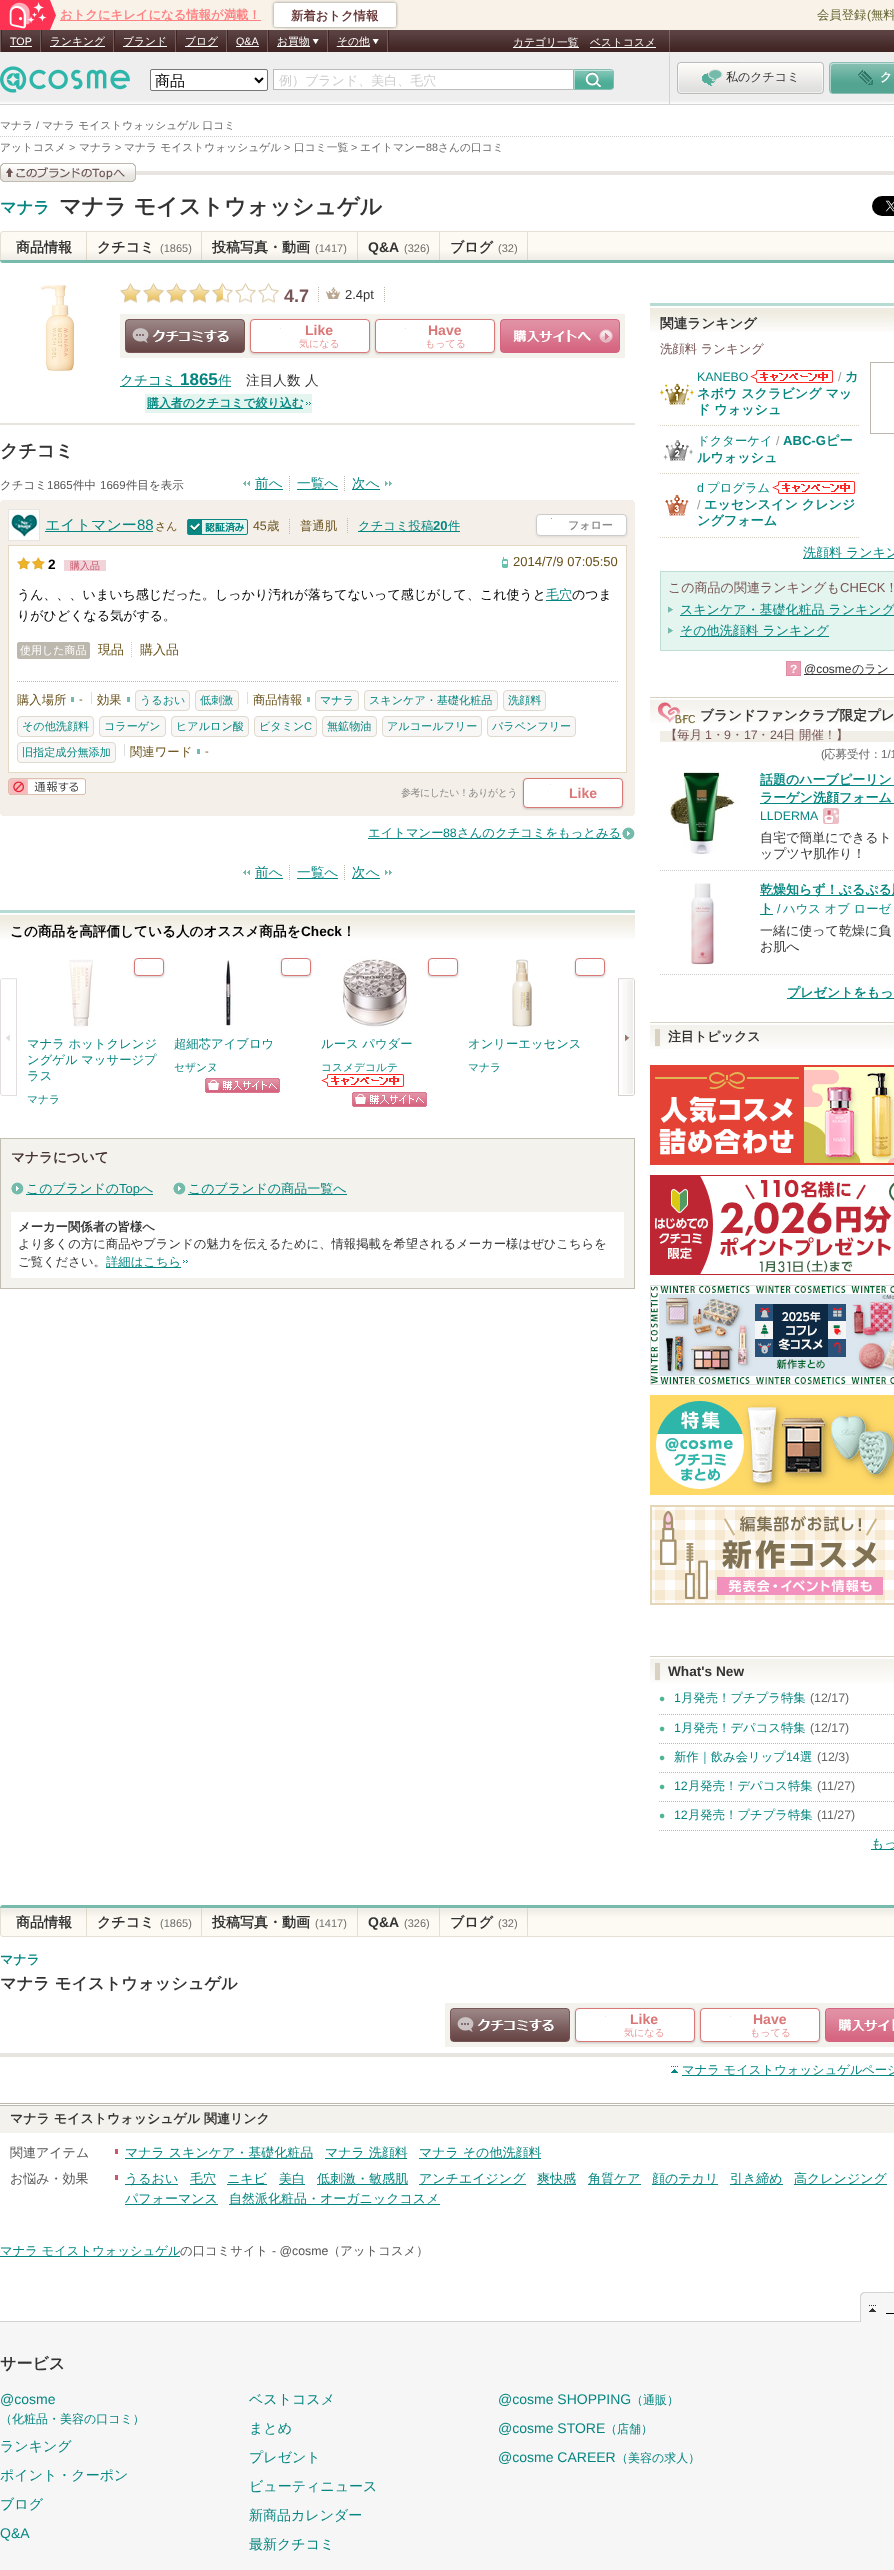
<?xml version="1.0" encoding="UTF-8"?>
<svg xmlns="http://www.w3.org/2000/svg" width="894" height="2570">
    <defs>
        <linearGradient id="g1" gradientUnits="userSpaceOnUse" x1="475" y1="231" x2="475" y2="263"><stop offset="0" stop-color="#FDFAF3"/><stop offset="0.6" stop-color="#FDFAF3"/><stop offset="0.9" stop-color="#EFECE7"/></linearGradient>
        <linearGradient id="g2" gradientUnits="userSpaceOnUse" x1="87" y1="232" x2="87" y2="260"><stop offset="0.15" stop-color="#E5E0D5"/><stop offset="0.85" stop-color="#DED7C7"/></linearGradient>
        <linearGradient id="g3" gradientUnits="userSpaceOnUse" x1="202" y1="232" x2="202" y2="260"><stop offset="0.15" stop-color="#E5E0D5"/><stop offset="0.85" stop-color="#DED7C7"/></linearGradient>
        <linearGradient id="g4" gradientUnits="userSpaceOnUse" x1="358" y1="232" x2="358" y2="260"><stop offset="0.15" stop-color="#E5E0D5"/><stop offset="0.85" stop-color="#DED7C7"/></linearGradient>
        <linearGradient id="g5" gradientUnits="userSpaceOnUse" x1="440" y1="232" x2="440" y2="260"><stop offset="0.15" stop-color="#E5E0D5"/><stop offset="0.85" stop-color="#DED7C7"/></linearGradient>
        <linearGradient id="g6" gradientUnits="userSpaceOnUse" x1="528" y1="232" x2="528" y2="260"><stop offset="0.15" stop-color="#E5E0D5"/><stop offset="0.85" stop-color="#DED7C7"/></linearGradient>
        <filter id="blur1" x="-50%" y="-200%" width="200%" height="500%"><feGaussianBlur stdDeviation="1"/></filter>
        <linearGradient id="g7" gradientUnits="userSpaceOnUse" x1="475" y1="1905" x2="475" y2="1937"><stop offset="0.16" stop-color="#EFECE7"/><stop offset="0.4" stop-color="#FDFAF3"/><stop offset="1" stop-color="#FDFAF3"/></linearGradient>
        <linearGradient id="g8" gradientUnits="userSpaceOnUse" x1="87" y1="1908" x2="87" y2="1936"><stop offset="0.15" stop-color="#DED7C7"/><stop offset="0.85" stop-color="#E5E0D5"/></linearGradient>
        <linearGradient id="g9" gradientUnits="userSpaceOnUse" x1="202" y1="1908" x2="202" y2="1936"><stop offset="0.15" stop-color="#DED7C7"/><stop offset="0.85" stop-color="#E5E0D5"/></linearGradient>
        <linearGradient id="g10" gradientUnits="userSpaceOnUse" x1="358" y1="1908" x2="358" y2="1936"><stop offset="0.15" stop-color="#DED7C7"/><stop offset="0.85" stop-color="#E5E0D5"/></linearGradient>
        <linearGradient id="g11" gradientUnits="userSpaceOnUse" x1="440" y1="1908" x2="440" y2="1936"><stop offset="0.15" stop-color="#DED7C7"/><stop offset="0.85" stop-color="#E5E0D5"/></linearGradient>
        <linearGradient id="g12" gradientUnits="userSpaceOnUse" x1="528" y1="1908" x2="528" y2="1936"><stop offset="0.15" stop-color="#DED7C7"/><stop offset="0.85" stop-color="#E5E0D5"/></linearGradient>
    </defs>
    <rect width="100%" height="100%" fill="#FFFFFF"/>
    <rect x="50" y="0" width="844" height="30" fill="#F8F2E9"/>
    <image x="0" y="0" width="56" height="30" href="img_01.png"/>
    <rect x="60" y="20" width="201" height="1" fill="#FF8182"/>
    <text x="60" y="19" font-family="WenQuanYi Zen Hei" font-size="12.35" font-weight="700" fill="#FF8182">おトクにキレイになる情報が満載！</text>
    <image x="271" y="0" width="128" height="30" href="img_02.png"/>
    <text x="291" y="20" font-family="WenQuanYi Zen Hei" font-size="12.35" font-weight="700" fill="#663333">新着おトク情報</text>
    <text x="817" y="19" font-family="WenQuanYi Zen Hei" font-size="12.35" font-weight="500" fill="#666633">会員登録</text>
    <text x="867" y="19" font-family="Liberation Sans" font-size="12.35" fill="#666633">(</text>
    <text x="871" y="19" font-family="WenQuanYi Zen Hei" font-size="12.35" font-weight="500" fill="#666633">無料</text>
    <image x="0" y="30" width="894" height="75" href="img_03.png"/>
    <image x="669" y="30" width="1" height="74" href="img_04.png"/>
    <rect x="388" y="30" width="1" height="22" fill="#402323"/>
    <rect x="0" y="30" width="1" height="22" fill="#725D5D"/>
    <rect x="40" y="30" width="1" height="22" fill="#725D5D"/>
    <rect x="1" y="30" width="1" height="22" fill="#402323"/>
    <text x="10" y="45" font-family="Liberation Sans" font-size="10.75" fill="#FFFFFF">TOP</text>
    <rect x="10" y="46" width="22" height="1" fill="#FFFFFF"/>
    <rect x="113" y="30" width="1" height="22" fill="#725D5D"/>
    <rect x="41" y="30" width="1" height="22" fill="#402323"/>
    <rect x="50" y="46" width="55" height="1" fill="#FFFFFF"/>
    <text x="50" y="45" font-family="WenQuanYi Zen Hei" font-size="10.75" font-weight="500" fill="#FFFFFF">ランキング</text>
    <rect x="175" y="30" width="1" height="22" fill="#725D5D"/>
    <rect x="114" y="30" width="1" height="22" fill="#402323"/>
    <rect x="123" y="46" width="44" height="1" fill="#FFFFFF"/>
    <text x="123" y="45" font-family="WenQuanYi Zen Hei" font-size="10.75" font-weight="500" fill="#FFFFFF">ブランド</text>
    <rect x="226" y="30" width="1" height="22" fill="#725D5D"/>
    <rect x="176" y="30" width="1" height="22" fill="#402323"/>
    <rect x="185" y="46" width="33" height="1" fill="#FFFFFF"/>
    <text x="185" y="45" font-family="WenQuanYi Zen Hei" font-size="10.75" font-weight="500" fill="#FFFFFF">ブログ</text>
    <rect x="267" y="30" width="1" height="22" fill="#725D5D"/>
    <rect x="227" y="30" width="1" height="22" fill="#402323"/>
    <rect x="236" y="46" width="23" height="1" fill="#FFFFFF"/>
    <text x="236" y="45" font-family="Liberation Sans" font-size="10.75" fill="#FFFFFF">Q&amp;A</text>
    <rect x="327" y="30" width="1" height="22" fill="#725D5D"/>
    <rect x="268" y="30" width="1" height="22" fill="#402323"/>
    <rect x="277" y="46" width="33" height="1" fill="#FFFFFF"/>
    <text x="277" y="45" font-family="WenQuanYi Zen Hei" font-size="10.75" font-weight="500" fill="#FFFFFF">お買物</text>
    <image x="312" y="39" width="7" height="5" href="img_05.png"/>
    <rect x="387" y="30" width="1" height="22" fill="#725D5D"/>
    <rect x="328" y="30" width="1" height="22" fill="#402323"/>
    <image x="336" y="39" width="43" height="8" href="img_06.png"/>
    <rect x="369" y="46" width="1" height="1" fill="#FFFFFF"/>
    <text x="337" y="45" font-family="WenQuanYi Zen Hei" font-size="10.75" font-weight="500" fill="#FFFFFF">その他</text>
    <rect x="513" y="47" width="66" height="1" fill="#FFFFFF"/>
    <text x="513" y="46" font-family="WenQuanYi Zen Hei" font-size="10.75" font-weight="500" fill="#FFFFFF">カテゴリ一覧</text>
    <rect x="590" y="47" width="66" height="1" fill="#FFFFFF"/>
    <text x="590" y="46" font-family="WenQuanYi Zen Hei" font-size="10.75" font-weight="500" fill="#FFFFFF">ベストコスメ</text>
    <image x="0" y="66" width="130" height="27" href="img_07.png"/>
    <rect x="150.5" y="69.5" width="117" height="21" rx="1.5" fill="#FFFFFF" stroke="#767676"/>
    <path d="M 255 78 L 259 82 L 263 78" fill="none" stroke="#000000" stroke-width="2"/>
    <text x="155" y="86" font-family="WenQuanYi Zen Hei" font-size="15" font-weight="500" fill="#000000">商品</text>
    <rect x="273.5" y="69.5" width="300" height="20" fill="#FFFFFF" stroke="#BBBBBB"/>
    <text x="279" y="85" font-family="WenQuanYi Zen Hei" font-size="13" font-weight="500" fill="#CCCCCC">例）ブランド、美白、毛穴</text>
    <image x="573" y="69" width="41" height="21" href="img_08.png"/>
    <image x="677" y="62" width="147" height="32" href="img_09.png"/>
    <image x="702" y="69" width="21" height="17" href="img_10.png"/>
    <text x="726" y="81" font-family="WenQuanYi Zen Hei" font-size="12" font-weight="500" fill="#333333">私のクチコミ</text>
    <image x="829" y="62" width="65" height="32" href="img_11.png"/>
    <image x="858" y="70" width="15" height="15" href="img_12.png"/>
    <text x="880" y="81" font-family="WenQuanYi Zen Hei" font-size="12" font-weight="700" fill="#FFFFFF">ク</text>
    <path d="M 0 136.5 H 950" fill="none" stroke="#CCCCCC" stroke-dasharray="1 1"/>
    <text x="0" y="129" font-family="WenQuanYi Zen Hei" font-size="10.75" font-weight="500" fill="#666666">マナラ</text>
    <text x="36" y="129" font-family="Liberation Sans" font-size="10.75" fill="#666666">/</text>
    <text x="42" y="129" font-family="WenQuanYi Zen Hei" font-size="10.75" font-weight="500" fill="#666666">マナラ モイストウォッシュゲル 口コミ</text>
    <text x="0" y="151" font-family="WenQuanYi Zen Hei" font-size="10.75" font-weight="500" fill="#666666">アットコスメ</text>
    <text x="69" y="151" font-family="Liberation Sans" font-size="10.75" fill="#666666">&gt;</text>
    <text x="79" y="151" font-family="WenQuanYi Zen Hei" font-size="10.75" font-weight="500" fill="#666666">マナラ</text>
    <text x="115" y="151" font-family="Liberation Sans" font-size="10.75" fill="#666666">&gt;</text>
    <text x="124" y="151" font-family="WenQuanYi Zen Hei" font-size="10.75" font-weight="500" fill="#666666">マナラ モイストウォッシュゲル</text>
    <text x="284" y="151" font-family="Liberation Sans" font-size="10.75" fill="#666666">&gt;</text>
    <text x="294" y="151" font-family="WenQuanYi Zen Hei" font-size="10.75" font-weight="500" fill="#666666">口コミ一覧</text>
    <text x="351" y="151" font-family="Liberation Sans" font-size="10.75" fill="#666666">&gt;</text>
    <text x="360" y="151" font-family="WenQuanYi Zen Hei" font-size="10.75" font-weight="500" fill="#666666">エイトマンー</text>
    <text x="426" y="151" font-family="Liberation Sans" font-size="10.75" fill="#666666">88</text>
    <text x="438" y="151" font-family="WenQuanYi Zen Hei" font-size="10.75" font-weight="500" fill="#666666">さんの口コミ</text>
    <rect x="136" y="171" width="758" height="4" fill="#E8E5E0"/>
    <image x="0" y="163" width="136" height="19" href="img_13.png"/>
    <image x="872" y="196" width="22" height="20" href="img_14.png"/>
    <text x="0" y="213" font-family="WenQuanYi Zen Hei" font-size="16.25" font-weight="700" fill="#068681">マナラ</text>
    <text x="59" y="214" font-family="WenQuanYi Zen Hei" font-size="22.1" font-weight="700" fill="#333333">マナラ モイストウォッシュゲル</text>
    <rect x="0" y="231" width="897" height="32" rx="3" fill="url(#g1)"/>
    <rect x="0.5" y="231.5" width="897" height="31" rx="2.5" fill="none" stroke="#E5E0D5"/>
    <text x="16" y="252" font-family="WenQuanYi Zen Hei" font-size="14" font-weight="700" fill="#333333">商品情報</text>
    <rect x="86" y="232" width="1" height="28" fill="url(#g2)"/>
    <text x="97" y="252" font-family="WenQuanYi Zen Hei" font-size="14" font-weight="700" fill="#333333">クチコミ</text>
    <text x="160" y="252" font-family="Liberation Sans" font-size="11" fill="#6F6E6C">(1865)</text>
    <rect x="201" y="232" width="1" height="28" fill="url(#g3)"/>
    <text x="212" y="252" font-family="WenQuanYi Zen Hei" font-size="14" font-weight="700" fill="#333333">投稿写真・動画</text>
    <text x="315" y="252" font-family="Liberation Sans" font-size="11" fill="#6F6E6C">(1417)</text>
    <rect x="357" y="232" width="1" height="28" fill="url(#g4)"/>
    <text x="368" y="252" font-family="Liberation Sans" font-size="14" font-weight="700" fill="#333333">Q&amp;A</text>
    <text x="404" y="252" font-family="Liberation Sans" font-size="11" fill="#6F6E6C">(326)</text>
    <rect x="439" y="232" width="1" height="28" fill="url(#g5)"/>
    <text x="450" y="252" font-family="WenQuanYi Zen Hei" font-size="14" font-weight="700" fill="#333333">ブログ</text>
    <text x="498" y="252" font-family="Liberation Sans" font-size="11" fill="#6F6E6C">(32)</text>
    <rect x="527" y="232" width="1" height="28" fill="url(#g6)"/>
    <path d="M 0 260 H 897 C 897 261.5 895.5 263 894 263 H 3 C 1.5 263 0 261.5 0 260 Z" fill="#76BBAB"/>
    <image x="40" y="285" width="35" height="86" href="img_15.png"/>
    <image x="120" y="283" width="159" height="20" href="img_16.png"/>
    <text x="284" y="302" font-family="Liberation Sans" font-size="18" font-weight="700" fill="#775555">4.7</text>
    <image x="326" y="287" width="14" height="12" href="img_17.png"/>
    <path d="M 384.5 287 V 303" fill="none" stroke="#BDB8AD" stroke-dasharray="1 1"/>
    <path d="M 318.5 287 V 303" fill="none" stroke="#BDB8AD" stroke-dasharray="1 1"/>
    <text x="345" y="299" font-family="Liberation Sans" font-size="13" fill="#333333">2.4pt</text>
    <rect x="120" y="314" width="505" height="44" fill="#F4F2EC"/>
    <image x="125" y="319" width="120" height="34" href="img_18.png"/>
    <rect x="250" y="320" width="120" height="34" rx="4" fill="#000000" fill-opacity="0.2" filter="url(#blur1)"/>
    <rect x="250.5" y="319.5" width="119" height="33" rx="3.5" fill="#FFFFFF" stroke="#D97777"/>
    <rect x="280" y="328" width="1" height="1" fill="#F7E4E4"/>
    <text x="305" y="335" font-family="Liberation Sans" font-size="14" font-weight="700" fill="#D97777">Like</text>
    <text x="299" y="347" font-family="WenQuanYi Zen Hei" font-size="10" font-weight="500" fill="#E99999">気になる</text>
    <rect x="375" y="320" width="120" height="34" rx="4" fill="#000000" fill-opacity="0.2" filter="url(#blur1)"/>
    <rect x="375.5" y="319.5" width="119" height="33" rx="3.5" fill="#FFFFFF" stroke="#D97777"/>
    <rect x="405" y="328" width="1" height="1" fill="#F6DEDE"/>
    <text x="428" y="335" font-family="Liberation Sans" font-size="14" font-weight="700" fill="#D97777">Have</text>
    <text x="425" y="347" font-family="WenQuanYi Zen Hei" font-size="10" font-weight="500" fill="#E99999">もってる</text>
    <image x="500" y="319" width="120" height="34" href="img_19.png"/>
    <rect x="120" y="386" width="111" height="1" fill="#068681"/>
    <text x="120" y="385" font-family="WenQuanYi Zen Hei" font-size="13.65" font-weight="500" fill="#068681">クチコミ</text>
    <text x="180" y="385" font-family="Liberation Sans" font-size="17" font-weight="700" fill="#068681">1865</text>
    <text x="218" y="385" font-family="WenQuanYi Zen Hei" font-size="13.65" font-weight="500" fill="#068681">件</text>
    <text x="246" y="385" font-family="WenQuanYi Zen Hei" font-size="13.65" font-weight="500" fill="#333333">注目人数</text>
    <text x="305" y="385" font-family="WenQuanYi Zen Hei" font-size="13.65" font-weight="500" fill="#333333">人</text>
    <rect x="145" y="394" width="167" height="19" fill="#E4F4EE"/>
    <image x="306" y="402" width="5" height="3" href="img_20.png"/>
    <rect x="147" y="408" width="156" height="1" fill="#068681"/>
    <text x="147" y="407" font-family="WenQuanYi Zen Hei" font-size="11.9" font-weight="700" fill="#068681">購入者のクチコミで絞り込む</text>
    <rect x="0" y="423" width="635" height="2" fill="#E8E5E0"/>
    <text x="0" y="457" font-family="WenQuanYi Zen Hei" font-size="18" font-weight="700" fill="#333333">クチコミ</text>
    <text x="0" y="489" font-family="WenQuanYi Zen Hei" font-size="11.5" font-weight="500" fill="#555555">クチコミ</text>
    <text x="47" y="489" font-family="Liberation Sans" font-size="11.5" fill="#555555">1865</text>
    <text x="73" y="489" font-family="WenQuanYi Zen Hei" font-size="11.5" font-weight="500" fill="#555555">件中</text>
    <text x="100" y="489" font-family="Liberation Sans" font-size="11.5" fill="#555555">1669</text>
    <text x="126" y="489" font-family="WenQuanYi Zen Hei" font-size="11.5" font-weight="500" fill="#555555">件目を表示</text>
    <image x="243" y="481" width="7" height="5" href="img_21.png"/>
    <rect x="255" y="489" width="28" height="1" fill="#068681"/>
    <text x="255" y="488" font-family="WenQuanYi Zen Hei" font-size="13.65" font-weight="500" fill="#068681">前へ</text>
    <rect x="297" y="489" width="41" height="1" fill="#068681"/>
    <text x="297" y="488" font-family="WenQuanYi Zen Hei" font-size="13.65" font-weight="500" fill="#068681">一覧へ</text>
    <path d="M 289.5 476 V 491" fill="none" stroke="#BDB8AD" stroke-dasharray="1 1"/>
    <rect x="352" y="489" width="28" height="1" fill="#068681"/>
    <text x="352" y="488" font-family="WenQuanYi Zen Hei" font-size="13.65" font-weight="500" fill="#068681">次へ</text>
    <path d="M 344.5 476 V 491" fill="none" stroke="#BDB8AD" stroke-dasharray="1 1"/>
    <image x="385" y="481" width="7" height="5" href="img_22.png"/>
    <rect x="0" y="502" width="635" height="312" fill="#F4F0E9"/>
    <image x="0" y="500" width="635" height="2" href="img_23.png"/>
    <image x="0" y="814" width="635" height="2" href="img_24.png"/>
    <rect x="8.5" y="509.5" width="31" height="31" fill="none" stroke="#E8E5E0"/>
    <image x="9" y="510" width="30" height="30" href="img_25.png"/>
    <rect x="45" y="531" width="108" height="1" fill="#068681"/>
    <text x="45" y="530" font-family="WenQuanYi Zen Hei" font-size="15" font-weight="500" fill="#068681">エイトマンー</text>
    <text x="137" y="530" font-family="Liberation Sans" font-size="15" fill="#068681">88</text>
    <text x="155" y="530" font-family="WenQuanYi Zen Hei" font-size="11" font-weight="500" fill="#69511A">さん</text>
    <image x="187" y="519" width="61" height="16" href="img_26.png"/>
    <text x="253" y="530" font-family="Liberation Sans" font-size="12.35" fill="#69511A">45</text>
    <text x="267" y="530" font-family="WenQuanYi Zen Hei" font-size="12.35" font-weight="500" fill="#69511A">歳</text>
    <path d="M 289.5 519 V 534" fill="none" stroke="#BDB8AD" stroke-dasharray="1 1"/>
    <text x="300" y="530" font-family="WenQuanYi Zen Hei" font-size="12.35" font-weight="500" fill="#69511A">普通肌</text>
    <path d="M 347.5 518 V 534" fill="none" stroke="#BDB8AD" stroke-dasharray="1 1"/>
    <rect x="358" y="531" width="102" height="1" fill="#068681"/>
    <text x="358" y="530" font-family="WenQuanYi Zen Hei" font-size="12.35" font-weight="500" fill="#068681">クチコミ投稿</text>
    <text x="433" y="530" font-family="Liberation Sans" font-size="13" font-weight="700" fill="#068681">20</text>
    <text x="448" y="530" font-family="WenQuanYi Zen Hei" font-size="12.35" font-weight="500" fill="#068681">件</text>
    <rect x="536" y="515" width="91" height="22" rx="4" fill="#000000" fill-opacity="0.1" filter="url(#blur1)"/>
    <rect x="536.5" y="514.5" width="90" height="21" rx="3.5" fill="#FFFFFF" stroke="#CCCCCC"/>
    <rect x="551" y="518" width="1" height="1" fill="#6AB6B3"/>
    <text x="568" y="529" font-family="WenQuanYi Zen Hei" font-size="11" font-weight="700" fill="#888888">フォロー</text>
    <rect x="8.5" y="545.5" width="618" height="227" fill="#FFFFFF" stroke="#E6D9C3"/>
    <image x="17" y="557" width="29" height="13" href="img_27.png"/>
    <text x="48" y="569" font-family="Liberation Sans" font-size="13.65" font-weight="700" fill="#000000">2</text>
    <rect x="64" y="560" width="42" height="11" fill="#F1D4D9"/>
    <text x="70" y="569" font-family="WenQuanYi Zen Hei" font-size="10" font-weight="500" fill="#CA576C">購入品</text>
    <image x="502" y="557" width="6" height="11" href="img_28.png"/>
    <text x="513" y="566" font-family="Liberation Sans" font-size="13" fill="#69511A">2014/7/9 07:05:50</text>
    <text x="17" y="599" font-family="WenQuanYi Zen Hei" font-size="13" font-weight="500" fill="#000000">うん、、、いまいち感じだった。しっかり汚れが落ちてないって感じがして、これ使うと</text>
    <rect x="546" y="600" width="26" height="1" fill="#068681"/>
    <text x="546" y="599" font-family="WenQuanYi Zen Hei" font-size="13" font-weight="500" fill="#068681">毛穴</text>
    <text x="572" y="599" font-family="WenQuanYi Zen Hei" font-size="13" font-weight="500" fill="#000000">のつま</text>
    <text x="17" y="620" font-family="WenQuanYi Zen Hei" font-size="13" font-weight="500" fill="#000000">りがひどくなる気がする。</text>
    <rect x="17.5" y="642.5" width="72" height="16" rx="1.5" fill="#BDB8AD" stroke="#BDB8AD"/>
    <text x="20" y="654" font-family="WenQuanYi Zen Hei" font-size="11" font-weight="500" fill="#FFFFFF">使用した商品</text>
    <text x="98" y="654" font-family="WenQuanYi Zen Hei" font-size="13" font-weight="500" fill="#69511A">現品</text>
    <path d="M 131.5 642 V 658" fill="none" stroke="#CCCCCC" stroke-dasharray="1 1"/>
    <text x="140" y="654" font-family="WenQuanYi Zen Hei" font-size="13" font-weight="500" fill="#69511A">購入品</text>
    <path d="M 17 681.5 H 618" fill="none" stroke="#BDB8AD" stroke-dasharray="1 1"/>
    <rect x="71" y="697" width="3" height="5" fill="#74BBAB"/>
    <text x="17" y="704" font-family="WenQuanYi Zen Hei" font-size="12.35" font-weight="500" fill="#69511A">購入場所</text>
    <text x="79" y="703" font-family="Liberation Sans" font-size="11.1" fill="#69511A">-</text>
    <rect x="127" y="697" width="3" height="5" fill="#74BBAB"/>
    <rect x="91" y="692" width="1" height="12" fill="#DDDDDD"/>
    <text x="97" y="704" font-family="WenQuanYi Zen Hei" font-size="12.35" font-weight="500" fill="#69511A">効果</text>
    <rect x="135.5" y="690.5" width="54" height="20" rx="3.5" fill="#F9F7F5" stroke="#DFD9CE"/>
    <text x="140" y="704" font-family="WenQuanYi Zen Hei" font-size="11.1" font-weight="500" fill="#068681">うるおい</text>
    <rect x="195.5" y="690.5" width="43" height="20" rx="3.5" fill="#F9F7F5" stroke="#DFD9CE"/>
    <text x="200" y="704" font-family="WenQuanYi Zen Hei" font-size="11.1" font-weight="500" fill="#068681">低刺激</text>
    <rect x="307" y="697" width="3" height="5" fill="#74BBAB"/>
    <rect x="247" y="692" width="1" height="12" fill="#DDDDDD"/>
    <text x="253" y="704" font-family="WenQuanYi Zen Hei" font-size="12.35" font-weight="500" fill="#69511A">商品情報</text>
    <rect x="315.5" y="690.5" width="43" height="20" rx="3.5" fill="#F9F7F5" stroke="#DFD9CE"/>
    <text x="320" y="704" font-family="WenQuanYi Zen Hei" font-size="11.1" font-weight="500" fill="#068681">マナラ</text>
    <rect x="364.5" y="690.5" width="133" height="20" rx="3.5" fill="#F9F7F5" stroke="#DFD9CE"/>
    <text x="369" y="704" font-family="WenQuanYi Zen Hei" font-size="11.1" font-weight="500" fill="#068681">スキンケア・基礎化粧品</text>
    <rect x="503.5" y="690.5" width="42" height="20" rx="3.5" fill="#F9F7F5" stroke="#DFD9CE"/>
    <text x="508" y="704" font-family="WenQuanYi Zen Hei" font-size="11.1" font-weight="500" fill="#068681">洗顔料</text>
    <rect x="17.5" y="716.5" width="76" height="20" rx="3.5" fill="#F9F7F5" stroke="#DFD9CE"/>
    <text x="22" y="730" font-family="WenQuanYi Zen Hei" font-size="11.1" font-weight="500" fill="#068681">その他洗顔料</text>
    <rect x="99.5" y="716.5" width="66" height="20" rx="3.5" fill="#F9F7F5" stroke="#DFD9CE"/>
    <text x="104" y="730" font-family="WenQuanYi Zen Hei" font-size="11.1" font-weight="500" fill="#068681">コラーゲン</text>
    <rect x="171.5" y="716.5" width="77" height="20" rx="3.5" fill="#F9F7F5" stroke="#DFD9CE"/>
    <text x="176" y="730" font-family="WenQuanYi Zen Hei" font-size="11.1" font-weight="500" fill="#068681">ヒアルロン酸</text>
    <rect x="254.5" y="716.5" width="62" height="20" rx="3.5" fill="#F9F7F5" stroke="#DFD9CE"/>
    <text x="259" y="730" font-family="WenQuanYi Zen Hei" font-size="11.1" font-weight="500" fill="#068681">ビタミン</text>
    <text x="304" y="730" font-family="Liberation Sans" font-size="11.1" fill="#068681">C</text>
    <rect x="322.5" y="716.5" width="54" height="20" rx="3.5" fill="#F9F7F5" stroke="#DFD9CE"/>
    <text x="327" y="730" font-family="WenQuanYi Zen Hei" font-size="11.1" font-weight="500" fill="#068681">無鉱物油</text>
    <rect x="382.5" y="716.5" width="99" height="20" rx="3.5" fill="#F9F7F5" stroke="#DFD9CE"/>
    <text x="387" y="730" font-family="WenQuanYi Zen Hei" font-size="11.1" font-weight="500" fill="#068681">アルコールフリー</text>
    <rect x="487.5" y="716.5" width="88" height="20" rx="3.5" fill="#F9F7F5" stroke="#DFD9CE"/>
    <text x="492" y="730" font-family="WenQuanYi Zen Hei" font-size="11.1" font-weight="500" fill="#068681">パラベンフリー</text>
    <rect x="17.5" y="742.5" width="98" height="20" rx="3.5" fill="#F9F7F5" stroke="#DFD9CE"/>
    <text x="22" y="756" font-family="WenQuanYi Zen Hei" font-size="11.1" font-weight="500" fill="#068681">旧指定成分無添加</text>
    <rect x="197" y="749" width="3" height="5" fill="#74BBAB"/>
    <rect x="124" y="744" width="1" height="12" fill="#DDDDDD"/>
    <text x="130" y="756" font-family="WenQuanYi Zen Hei" font-size="12.35" font-weight="500" fill="#69511A">関連ワード</text>
    <text x="205" y="755" font-family="Liberation Sans" font-size="11.1" fill="#69511A">-</text>
    <image x="8" y="778" width="78" height="17" href="img_29.png"/>
    <text x="401" y="796" font-family="WenQuanYi Zen Hei" font-size="10" font-weight="500" letter-spacing="-0.5" fill="#888888">参考にしたい！ありがとう</text>
    <rect x="523" y="779" width="100" height="30" rx="4" fill="#000000" fill-opacity="0.2" filter="url(#blur1)"/>
    <rect x="523.5" y="778.5" width="99" height="29" rx="3.5" fill="#FFFFFF" stroke="#D97777"/>
    <rect x="550" y="784" width="1" height="1" fill="#F7E4E4"/>
    <text x="569" y="798" font-family="Liberation Sans" font-size="14" font-weight="700" fill="#D97777">Like</text>
    <rect x="368" y="838" width="253" height="1" fill="#068681"/>
    <text x="368" y="837" font-family="WenQuanYi Zen Hei" font-size="12.35" font-weight="500" fill="#068681">エイトマンー</text>
    <text x="443" y="837" font-family="Liberation Sans" font-size="12.35" fill="#068681">88</text>
    <text x="457" y="837" font-family="WenQuanYi Zen Hei" font-size="12.35" font-weight="500" fill="#068681">さんのクチコミをもっとみる</text>
    <image x="622" y="827" width="13" height="13" href="img_30.png"/>
    <image x="243" y="870" width="7" height="5" href="img_21.png"/>
    <rect x="255" y="878" width="28" height="1" fill="#068681"/>
    <text x="255" y="877" font-family="WenQuanYi Zen Hei" font-size="13.65" font-weight="500" fill="#068681">前へ</text>
    <rect x="297" y="878" width="41" height="1" fill="#068681"/>
    <text x="297" y="877" font-family="WenQuanYi Zen Hei" font-size="13.65" font-weight="500" fill="#068681">一覧へ</text>
    <path d="M 289.5 865 V 880" fill="none" stroke="#BDB8AD" stroke-dasharray="1 1"/>
    <rect x="352" y="878" width="28" height="1" fill="#068681"/>
    <text x="352" y="877" font-family="WenQuanYi Zen Hei" font-size="13.65" font-weight="500" fill="#068681">次へ</text>
    <path d="M 344.5 865 V 880" fill="none" stroke="#BDB8AD" stroke-dasharray="1 1"/>
    <image x="385" y="870" width="7" height="5" href="img_22.png"/>
    <image x="0" y="910" width="635" height="29" href="img_31.png"/>
    <text x="10" y="936" font-family="WenQuanYi Zen Hei" font-size="13.65" font-weight="700" fill="#000000">この商品を高評価している人のオススメ商品を</text>
    <text x="301" y="936" font-family="Liberation Sans" font-size="13.65" font-weight="700" fill="#000000">Check</text>
    <text x="342" y="936" font-family="WenQuanYi Zen Hei" font-size="13.65" font-weight="700" fill="#000000">！</text>
    <image x="0" y="978" width="17" height="118" href="img_32.png"/>
    <rect x="134" y="959" width="30" height="18" rx="4" fill="#000000" fill-opacity="0.2" filter="url(#blur1)"/>
    <rect x="134.5" y="958.5" width="29" height="17" rx="3.5" fill="#FFFFFF" stroke="#D97777"/>
    <rect x="141" y="960" width="1" height="1" fill="#F7E4E4"/>
    <image x="69" y="959" width="25" height="69" href="img_33.png"/>
    <text font-family="WenQuanYi Zen Hei" font-size="12.35" font-weight="500" fill="#068681">
        <tspan x="27" y="1048">マナラ ホットクレンジ</tspan>
        <tspan x="27" y="1064">ングゲル マッサージプ</tspan>
        <tspan x="27" y="1080">ラス</tspan>
    </text>
    <text x="27" y="1103" font-family="WenQuanYi Zen Hei" font-size="10.75" font-weight="500" fill="#068681">マナラ</text>
    <rect x="281" y="959" width="30" height="18" rx="4" fill="#000000" fill-opacity="0.2" filter="url(#blur1)"/>
    <rect x="281.5" y="958.5" width="29" height="17" rx="3.5" fill="#FFFFFF" stroke="#D97777"/>
    <rect x="288" y="960" width="1" height="1" fill="#F7E4E4"/>
    <image x="224" y="960" width="9" height="66" href="img_34.png"/>
    <text x="174" y="1048" font-family="WenQuanYi Zen Hei" font-size="12.35" font-weight="500" fill="#068681">超細芯アイブロウ</text>
    <text x="174" y="1071" font-family="WenQuanYi Zen Hei" font-size="10.75" font-weight="500" fill="#068681">セザンヌ</text>
    <image x="205" y="1078" width="75" height="15" href="img_35.png"/>
    <rect x="428" y="959" width="30" height="18" rx="4" fill="#000000" fill-opacity="0.2" filter="url(#blur1)"/>
    <rect x="428.5" y="958.5" width="29" height="17" rx="3.5" fill="#FFFFFF" stroke="#D97777"/>
    <rect x="435" y="960" width="1" height="1" fill="#F7E4E4"/>
    <image x="341" y="958" width="68" height="69" href="img_36.png"/>
    <text x="321" y="1048" font-family="WenQuanYi Zen Hei" font-size="12.35" font-weight="500" fill="#068681">ルース パウダー</text>
    <text x="321" y="1071" font-family="WenQuanYi Zen Hei" font-size="10.75" font-weight="500" fill="#068681">コスメデコルテ</text>
    <image x="321" y="1074" width="84" height="13" href="img_37.png"/>
    <image x="352" y="1092" width="75" height="15" href="img_35.png"/>
    <rect x="575" y="959" width="30" height="18" rx="4" fill="#000000" fill-opacity="0.2" filter="url(#blur1)"/>
    <rect x="575.5" y="958.5" width="29" height="17" rx="3.5" fill="#FFFFFF" stroke="#D97777"/>
    <rect x="582" y="960" width="1" height="1" fill="#F7E4E4"/>
    <image x="512" y="959" width="20" height="68" href="img_38.png"/>
    <text x="468" y="1048" font-family="WenQuanYi Zen Hei" font-size="12.35" font-weight="500" fill="#068681">オンリーエッセンス</text>
    <text x="468" y="1071" font-family="WenQuanYi Zen Hei" font-size="10.75" font-weight="500" fill="#068681">マナラ</text>
    <image x="618" y="978" width="17" height="118" href="img_39.png"/>
    <rect x="0.5" y="1138.5" width="634" height="150" fill="#F4F2EC" stroke="#C2BEB3"/>
    <text x="11" y="1162" font-family="WenQuanYi Zen Hei" font-size="13.65" font-weight="700" fill="#443333">マナラについて</text>
    <image x="11" y="1182" width="13" height="13" href="img_40.png"/>
    <rect x="26" y="1194" width="127" height="1" fill="#068681"/>
    <text x="26" y="1193" font-family="WenQuanYi Zen Hei" font-size="13" font-weight="500" fill="#068681">このブランドの</text>
    <text x="119" y="1193" font-family="Liberation Sans" font-size="13" fill="#068681">Top</text>
    <text x="140" y="1193" font-family="WenQuanYi Zen Hei" font-size="13" font-weight="500" fill="#068681">へ</text>
    <image x="173" y="1182" width="13" height="13" href="img_40.png"/>
    <rect x="188" y="1194" width="159" height="1" fill="#068681"/>
    <text x="188" y="1193" font-family="WenQuanYi Zen Hei" font-size="13" font-weight="500" fill="#068681">このブランドの商品一覧へ</text>
    <rect x="11" y="1212" width="613" height="66" fill="#FFFFFF"/>
    <text x="18" y="1231" font-family="WenQuanYi Zen Hei" font-size="12.35" font-weight="700" fill="#333333">メーカー関係者の皆様へ</text>
    <text font-family="WenQuanYi Zen Hei" font-size="12.35" font-weight="500" fill="#333333">
        <tspan x="18" y="1248">より多くの方に商品やブランドの魅力を伝えるために、情報掲載を希望されるメーカー様はぜひこちらを</tspan>
        <tspan x="18" y="1266">ご覧ください。</tspan>
    </text>
    <rect x="106" y="1267" width="75" height="1" fill="#068681"/>
    <text x="106" y="1266" font-family="WenQuanYi Zen Hei" font-size="12.35" font-weight="500" fill="#068681">詳細はこちら</text>
    <image x="183" y="1260" width="5" height="3" href="img_41.png"/>
    <image x="650" y="303" width="244" height="29" href="img_42.png"/>
    <text x="660" y="328" font-family="WenQuanYi Zen Hei" font-size="13.65" font-weight="700" fill="#333333">関連ランキング</text>
    <text x="660" y="353" font-family="WenQuanYi Zen Hei" font-size="12.35" font-weight="500" fill="#775555">洗顔料 ランキング</text>
    <image x="660" y="383" width="34" height="22" href="img_43.png"/>
    <path d="M 660 425.5 H 860" fill="none" stroke="#D9D2C3" stroke-dasharray="1 1"/>
    <text x="697" y="381" font-family="Liberation Sans" font-size="12.35" fill="#068681">KANEBO</text>
    <image x="750" y="370" width="84" height="13" href="img_37.png"/>
    <text x="838" y="381" font-family="Liberation Sans" font-size="12.35" fill="#999999">/</text>
    <text x="845" y="381" font-family="WenQuanYi Zen Hei" font-size="13.1" font-weight="700" fill="#068681">カ</text>
    <text font-family="WenQuanYi Zen Hei" font-size="13.1" font-weight="700" fill="#068681">
        <tspan x="697" y="398">ネボウ スクラビング マッ</tspan>
        <tspan x="697" y="414">ド ウォッシュ</tspan>
    </text>
    <image x="663" y="440" width="30" height="21" href="img_44.png"/>
    <path d="M 660 473.5 H 860" fill="none" stroke="#D9D2C3" stroke-dasharray="1 1"/>
    <text x="697" y="445" font-family="WenQuanYi Zen Hei" font-size="12.35" font-weight="500" fill="#068681">ドクターケイ</text>
    <text x="776" y="445" font-family="Liberation Sans" font-size="12.35" fill="#999999">/</text>
    <text x="783" y="445" font-family="Liberation Sans" font-size="13.1" font-weight="700" fill="#068681">ABC-G</text>
    <text x="826" y="445" font-family="WenQuanYi Zen Hei" font-size="13.1" font-weight="700" fill="#068681">ピー</text>
    <text x="697" y="462" font-family="WenQuanYi Zen Hei" font-size="13.1" font-weight="700" fill="#068681">ルウォッシュ</text>
    <image x="665" y="494" width="24" height="22" href="img_45.png"/>
    <path d="M 660 537.5 H 860" fill="none" stroke="#D9D2C3" stroke-dasharray="1 1"/>
    <text x="697" y="492" font-family="Liberation Sans" font-size="12.35" fill="#068681">d</text>
    <text x="707" y="492" font-family="WenQuanYi Zen Hei" font-size="12.35" font-weight="500" fill="#068681">プログラム</text>
    <image x="772" y="481" width="84" height="13" href="img_37.png"/>
    <text x="697" y="509" font-family="Liberation Sans" font-size="12.35" fill="#999999">/</text>
    <text x="704" y="509" font-family="WenQuanYi Zen Hei" font-size="13.1" font-weight="700" fill="#068681">エッセンスイン クレンジ</text>
    <text x="697" y="525" font-family="WenQuanYi Zen Hei" font-size="13.1" font-weight="700" fill="#068681">ングフォーム</text>
    <rect x="870.5" y="362.5" width="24" height="71" fill="none" stroke="#BDB8AD"/>
    <rect x="803" y="558" width="91" height="1" fill="#068681"/>
    <text x="803" y="557" font-family="WenQuanYi Zen Hei" font-size="13" font-weight="500" fill="#068681">洗顔料 ランキン</text>
    <rect x="660.5" y="571.5" width="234" height="79" fill="#E4F4EE" stroke="#BEDED3"/>
    <text x="668" y="592" font-family="WenQuanYi Zen Hei" font-size="13" font-weight="500" fill="#775555">この商品の関連ランキングも</text>
    <text x="840" y="592" font-family="Liberation Sans" font-size="13" fill="#775555">CHECK</text>
    <text x="885" y="592" font-family="WenQuanYi Zen Hei" font-size="13" font-weight="500" fill="#775555">！</text>
    <image x="668" y="606" width="5" height="7" href="img_46.png"/>
    <rect x="680" y="615" width="214" height="1" fill="#068681"/>
    <text x="680" y="614" font-family="WenQuanYi Zen Hei" font-size="13" font-weight="500" fill="#068681">スキンケア・基礎化粧品 ランキング</text>
    <image x="668" y="627" width="5" height="7" href="img_46.png"/>
    <rect x="680" y="636" width="149" height="1" fill="#068681"/>
    <text x="680" y="635" font-family="WenQuanYi Zen Hei" font-size="13" font-weight="500" fill="#068681">その他洗顔料 ランキング</text>
    <rect x="786.5" y="661.5" width="14" height="14" fill="#EA9CB2" stroke="#DF8DA4"/>
    <text x="790" y="673" font-family="Liberation Sans" font-size="12" font-weight="700" fill="#FFFFFF">?</text>
    <rect x="804" y="674" width="90" height="1" fill="#333333"/>
    <text x="804" y="673" font-family="Liberation Sans" font-size="12" fill="#333333">@cosme</text>
    <text x="852" y="673" font-family="WenQuanYi Zen Hei" font-size="12" font-weight="500" fill="#333333">のラン</text>
    <image x="650" y="697" width="244" height="26" href="img_47.png"/>
    <image x="658" y="702" width="37" height="22" href="img_48.png"/>
    <text x="700" y="720" font-family="WenQuanYi Zen Hei" font-size="13.65" font-weight="700" fill="#333333">ブランドファンクラブ限定プレ</text>
    <rect x="660" y="731" width="234" height="11" fill="#F1EEE8"/>
    <text x="665" y="739" font-family="WenQuanYi Zen Hei" font-size="12.35" font-weight="500" fill="#775555">【毎月</text>
    <text x="705" y="739" font-family="Liberation Sans" font-size="12.35" fill="#775555">1</text>
    <text x="712" y="739" font-family="WenQuanYi Zen Hei" font-size="12.35" font-weight="500" fill="#775555">・</text>
    <text x="724" y="739" font-family="Liberation Sans" font-size="12.35" fill="#775555">9</text>
    <text x="731" y="739" font-family="WenQuanYi Zen Hei" font-size="12.35" font-weight="500" fill="#775555">・</text>
    <text x="744" y="739" font-family="Liberation Sans" font-size="12.35" fill="#775555">17</text>
    <text x="757" y="739" font-family="WenQuanYi Zen Hei" font-size="12.35" font-weight="500" fill="#775555">・</text>
    <text x="770" y="739" font-family="Liberation Sans" font-size="12.35" fill="#775555">24</text>
    <text x="783" y="739" font-family="WenQuanYi Zen Hei" font-size="12.35" font-weight="500" fill="#775555">日 開催！】</text>
    <text x="821" y="758" font-family="Liberation Sans" font-size="11.5" fill="#666666">(</text>
    <text x="824" y="758" font-family="WenQuanYi Zen Hei" font-size="11.5" font-weight="500" fill="#666666">応募受付：</text>
    <text x="881" y="758" font-family="Liberation Sans" font-size="11.5" fill="#666666">1/1</text>
    <path d="M 660 870.5 H 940" fill="none" stroke="#CCCCCC" stroke-dasharray="1 1"/>
    <image x="665" y="771" width="74" height="83" href="img_49.png"/>
    <rect x="760" y="785" width="134" height="1" fill="#068681"/>
    <text x="760" y="784" font-family="WenQuanYi Zen Hei" font-size="13" font-weight="700" fill="#068681">話題のハーブピーリン</text>
    <rect x="760" y="803" width="134" height="1" fill="#068681"/>
    <text x="760" y="802" font-family="WenQuanYi Zen Hei" font-size="13" font-weight="700" fill="#068681">ラーゲン洗顔フォーム</text>
    <text x="760" y="820" font-family="Liberation Sans" font-size="12.35" fill="#068681">LLDERMA</text>
    <image x="823" y="808" width="16" height="16" href="img_50.png"/>
    <text font-family="WenQuanYi Zen Hei" font-size="13" font-weight="500" fill="#333333">
        <tspan x="760" y="842">自宅で簡単にできるト</tspan>
        <tspan x="760" y="858">ップツヤ肌作り！</tspan>
    </text>
    <path d="M 660 974.5 H 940" fill="none" stroke="#CCCCCC" stroke-dasharray="1 1"/>
    <image x="689" y="883" width="26" height="82" href="img_51.png"/>
    <rect x="760" y="895" width="134" height="1" fill="#068681"/>
    <text x="760" y="894" font-family="WenQuanYi Zen Hei" font-size="13" font-weight="700" fill="#068681">乾燥知らず！ぷるぷる肌</text>
    <rect x="760" y="914" width="13" height="1" fill="#068681"/>
    <text x="760" y="913" font-family="WenQuanYi Zen Hei" font-size="13" font-weight="700" fill="#068681">ト</text>
    <text x="777" y="913" font-family="Liberation Sans" font-size="12.35" fill="#068681">/</text>
    <text x="783" y="913" font-family="WenQuanYi Zen Hei" font-size="12.35" font-weight="500" fill="#068681">ハウス オブ ローゼ</text>
    <text font-family="WenQuanYi Zen Hei" font-size="13" font-weight="500" fill="#333333">
        <tspan x="760" y="935">一緒に使って乾燥に負</tspan>
        <tspan x="760" y="951">お肌へ</tspan>
    </text>
    <rect x="787" y="998" width="107" height="1" fill="#068681"/>
    <text x="787" y="997" font-family="WenQuanYi Zen Hei" font-size="13" font-weight="700" fill="#068681">プレゼントをもっ</text>
    <image x="650" y="1022" width="244" height="27" href="img_52.png"/>
    <text x="668" y="1041" font-family="WenQuanYi Zen Hei" font-size="13" font-weight="700" fill="#333333">注目トピックス</text>
    <image x="650" y="1065" width="244" height="100" href="img_53.png"/>
    <image x="650" y="1175" width="244" height="100" href="img_54.png"/>
    <image x="650" y="1285" width="244" height="100" href="img_55.png"/>
    <image x="650" y="1395" width="244" height="100" href="img_56.png"/>
    <image x="650" y="1505" width="244" height="100" href="img_57.png"/>
    <image x="650" y="1656" width="244" height="27" href="img_52.png"/>
    <text x="668" y="1676" font-family="Liberation Sans" font-size="13.65" font-weight="700" fill="#333333">What's New</text>
    <image x="659" y="1696" width="6" height="6" href="img_58.png"/>
    <path d="M 659 1714.5 H 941" fill="none" stroke="#BFB7AC" stroke-dasharray="1 1"/>
    <text x="674" y="1702" font-family="Liberation Sans" font-size="12.35" fill="#068681">1</text>
    <text x="681" y="1702" font-family="WenQuanYi Zen Hei" font-size="12.35" font-weight="500" fill="#068681">月発売！プチプラ特集</text>
    <text x="810" y="1702" font-family="Liberation Sans" font-size="12.35" fill="#666666">(12/17)</text>
    <image x="659" y="1726" width="6" height="6" href="img_58.png"/>
    <path d="M 659 1743.5 H 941" fill="none" stroke="#BFB7AC" stroke-dasharray="1 1"/>
    <text x="674" y="1732" font-family="Liberation Sans" font-size="12.35" fill="#068681">1</text>
    <text x="681" y="1732" font-family="WenQuanYi Zen Hei" font-size="12.35" font-weight="500" fill="#068681">月発売！デパコス特集</text>
    <text x="810" y="1732" font-family="Liberation Sans" font-size="12.35" fill="#666666">(12/17)</text>
    <image x="659" y="1755" width="6" height="6" href="img_58.png"/>
    <path d="M 659 1772.5 H 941" fill="none" stroke="#BFB7AC" stroke-dasharray="1 1"/>
    <text x="674" y="1761" font-family="WenQuanYi Zen Hei" font-size="12.35" font-weight="500" fill="#068681">新作｜飲み会リップ</text>
    <text x="786" y="1761" font-family="Liberation Sans" font-size="12.35" fill="#068681">14</text>
    <text x="800" y="1761" font-family="WenQuanYi Zen Hei" font-size="12.35" font-weight="500" fill="#068681">選</text>
    <text x="817" y="1761" font-family="Liberation Sans" font-size="12.35" fill="#666666">(12/3)</text>
    <image x="659" y="1784" width="6" height="6" href="img_58.png"/>
    <path d="M 659 1801.5 H 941" fill="none" stroke="#BFB7AC" stroke-dasharray="1 1"/>
    <text x="674" y="1790" font-family="Liberation Sans" font-size="12.35" fill="#068681">12</text>
    <text x="688" y="1790" font-family="WenQuanYi Zen Hei" font-size="12.35" font-weight="500" fill="#068681">月発売！デパコス特集</text>
    <text x="817" y="1790" font-family="Liberation Sans" font-size="12.35" fill="#666666">(11/27)</text>
    <image x="659" y="1813" width="6" height="6" href="img_58.png"/>
    <path d="M 659 1830.5 H 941" fill="none" stroke="#BFB7AC" stroke-dasharray="1 1"/>
    <text x="674" y="1819" font-family="Liberation Sans" font-size="12.35" fill="#068681">12</text>
    <text x="688" y="1819" font-family="WenQuanYi Zen Hei" font-size="12.35" font-weight="500" fill="#068681">月発売！プチプラ特集</text>
    <text x="817" y="1819" font-family="Liberation Sans" font-size="12.35" fill="#666666">(11/27)</text>
    <rect x="871" y="1849" width="23" height="1" fill="#068681"/>
    <text x="871" y="1848" font-family="WenQuanYi Zen Hei" font-size="13" font-weight="500" fill="#068681">もっ</text>
    <rect x="0" y="2053" width="894" height="4" fill="#E8E5E0"/>
    <rect x="0" y="1905" width="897" height="32" rx="3" fill="url(#g7)"/>
    <rect x="0.5" y="1905.5" width="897" height="31" rx="2.5" fill="none" stroke="#E5E0D5"/>
    <path d="M 3 1905 H 894 C 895.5 1905 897 1906.5 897 1908 H 0 C 0 1906.5 1.5 1905 3 1905 Z" fill="#76BBAB"/>
    <text x="16" y="1927" font-family="WenQuanYi Zen Hei" font-size="14" font-weight="700" fill="#333333">商品情報</text>
    <rect x="86" y="1908" width="1" height="28" fill="url(#g8)"/>
    <text x="97" y="1927" font-family="WenQuanYi Zen Hei" font-size="14" font-weight="700" fill="#333333">クチコミ</text>
    <text x="160" y="1927" font-family="Liberation Sans" font-size="11" fill="#6F6E6C">(1865)</text>
    <rect x="201" y="1908" width="1" height="28" fill="url(#g9)"/>
    <text x="212" y="1927" font-family="WenQuanYi Zen Hei" font-size="14" font-weight="700" fill="#333333">投稿写真・動画</text>
    <text x="315" y="1927" font-family="Liberation Sans" font-size="11" fill="#6F6E6C">(1417)</text>
    <rect x="357" y="1908" width="1" height="28" fill="url(#g10)"/>
    <text x="368" y="1927" font-family="Liberation Sans" font-size="14" font-weight="700" fill="#333333">Q&amp;A</text>
    <text x="404" y="1927" font-family="Liberation Sans" font-size="11" fill="#6F6E6C">(326)</text>
    <rect x="439" y="1908" width="1" height="28" fill="url(#g11)"/>
    <text x="450" y="1927" font-family="WenQuanYi Zen Hei" font-size="14" font-weight="700" fill="#333333">ブログ</text>
    <text x="498" y="1927" font-family="Liberation Sans" font-size="11" fill="#6F6E6C">(32)</text>
    <rect x="527" y="1908" width="1" height="28" fill="url(#g12)"/>
    <text x="0" y="1964" font-family="WenQuanYi Zen Hei" font-size="13" font-weight="700" fill="#068681">マナラ</text>
    <text x="0" y="1989" font-family="WenQuanYi Zen Hei" font-size="16.25" font-weight="700" fill="#333333">マナラ モイストウォッシュゲル</text>
    <rect x="445" y="2003" width="449" height="44" fill="#F4F2EC"/>
    <image x="450" y="2008" width="120" height="34" href="img_18.png"/>
    <rect x="575" y="2009" width="120" height="34" rx="4" fill="#000000" fill-opacity="0.2" filter="url(#blur1)"/>
    <rect x="575.5" y="2008.5" width="119" height="33" rx="3.5" fill="#FFFFFF" stroke="#D97777"/>
    <rect x="605" y="2016" width="1" height="1" fill="#F7E4E4"/>
    <text x="630" y="2024" font-family="Liberation Sans" font-size="14" font-weight="700" fill="#D97777">Like</text>
    <text x="624" y="2036" font-family="WenQuanYi Zen Hei" font-size="10" font-weight="500" fill="#E99999">気になる</text>
    <rect x="700" y="2009" width="120" height="34" rx="4" fill="#000000" fill-opacity="0.2" filter="url(#blur1)"/>
    <rect x="700.5" y="2008.5" width="119" height="33" rx="3.5" fill="#FFFFFF" stroke="#D97777"/>
    <rect x="730" y="2016" width="1" height="1" fill="#F6DEDE"/>
    <text x="753" y="2024" font-family="Liberation Sans" font-size="14" font-weight="700" fill="#D97777">Have</text>
    <text x="750" y="2036" font-family="WenQuanYi Zen Hei" font-size="10" font-weight="500" fill="#E99999">もってる</text>
    <image x="825" y="2008" width="69" height="34" href="img_59.png"/>
    <image x="671" y="2066" width="7" height="7" href="img_60.png"/>
    <rect x="682" y="2075" width="180" height="1" fill="#068681"/>
    <text x="682" y="2074" font-family="WenQuanYi Zen Hei" font-size="12.35" font-weight="500" fill="#068681">マナラ モイストウォッシュゲル</text>
    <rect x="862" y="2075" width="32" height="1" fill="#068681"/>
    <text x="862" y="2074" font-family="WenQuanYi Zen Hei" font-size="12.35" font-weight="500" fill="#068681">ページ</text>
    <rect x="0" y="2103" width="894" height="1" fill="#BDB8AD"/>
    <rect x="0" y="2105" width="894" height="1" fill="#BDB8AD"/>
    <rect x="0" y="2106" width="894" height="27" fill="#F4F2EC"/>
    <text x="10" y="2123" font-family="WenQuanYi Zen Hei" font-size="13" font-weight="700" fill="#333333">マナラ モイストウォッシュゲル</text>
    <text x="204" y="2123" font-family="WenQuanYi Zen Hei" font-size="13" font-weight="700" fill="#333333">関連リンク</text>
    <text x="10" y="2157" font-family="WenQuanYi Zen Hei" font-size="13" font-weight="500" fill="#555555">関連アイテム</text>
    <rect x="115" y="2149" width="3" height="5" fill="#CF546D"/>
    <rect x="125" y="2158" width="188" height="1" fill="#068681"/>
    <text x="125" y="2157" font-family="WenQuanYi Zen Hei" font-size="13" font-weight="500" fill="#068681">マナラ スキンケア・基礎化粧品</text>
    <rect x="325" y="2158" width="82" height="1" fill="#068681"/>
    <text x="325" y="2157" font-family="WenQuanYi Zen Hei" font-size="13" font-weight="500" fill="#068681">マナラ 洗顔料</text>
    <rect x="419" y="2158" width="122" height="1" fill="#068681"/>
    <text x="419" y="2157" font-family="WenQuanYi Zen Hei" font-size="13" font-weight="500" fill="#068681">マナラ その他洗顔料</text>
    <text x="10" y="2183" font-family="WenQuanYi Zen Hei" font-size="13" font-weight="500" fill="#555555">お悩み・効果</text>
    <rect x="115" y="2175" width="3" height="5" fill="#CF546D"/>
    <rect x="125" y="2184" width="53" height="1" fill="#068681"/>
    <text x="125" y="2183" font-family="WenQuanYi Zen Hei" font-size="13" font-weight="500" fill="#068681">うるおい</text>
    <rect x="190" y="2184" width="26" height="1" fill="#068681"/>
    <text x="190" y="2183" font-family="WenQuanYi Zen Hei" font-size="13" font-weight="500" fill="#068681">毛穴</text>
    <rect x="227" y="2184" width="40" height="1" fill="#068681"/>
    <text x="227" y="2183" font-family="WenQuanYi Zen Hei" font-size="13" font-weight="500" fill="#068681">ニキビ</text>
    <rect x="279" y="2184" width="26" height="1" fill="#068681"/>
    <text x="279" y="2183" font-family="WenQuanYi Zen Hei" font-size="13" font-weight="500" fill="#068681">美白</text>
    <rect x="317" y="2184" width="91" height="1" fill="#068681"/>
    <text x="317" y="2183" font-family="WenQuanYi Zen Hei" font-size="13" font-weight="500" fill="#068681">低刺激・敏感肌</text>
    <rect x="419" y="2184" width="107" height="1" fill="#068681"/>
    <text x="419" y="2183" font-family="WenQuanYi Zen Hei" font-size="13" font-weight="500" fill="#068681">アンチエイジング</text>
    <rect x="537" y="2184" width="39" height="1" fill="#068681"/>
    <text x="537" y="2183" font-family="WenQuanYi Zen Hei" font-size="13" font-weight="500" fill="#068681">爽快感</text>
    <rect x="588" y="2184" width="53" height="1" fill="#068681"/>
    <text x="588" y="2183" font-family="WenQuanYi Zen Hei" font-size="13" font-weight="500" fill="#068681">角質ケア</text>
    <rect x="652" y="2184" width="66" height="1" fill="#068681"/>
    <text x="652" y="2183" font-family="WenQuanYi Zen Hei" font-size="13" font-weight="500" fill="#068681">顔のテカリ</text>
    <rect x="730" y="2184" width="53" height="1" fill="#068681"/>
    <text x="730" y="2183" font-family="WenQuanYi Zen Hei" font-size="13" font-weight="500" fill="#068681">引き締め</text>
    <rect x="794" y="2184" width="93" height="1" fill="#068681"/>
    <text x="794" y="2183" font-family="WenQuanYi Zen Hei" font-size="13" font-weight="500" fill="#068681">高クレンジング</text>
    <rect x="125" y="2204" width="93" height="1" fill="#068681"/>
    <text x="125" y="2203" font-family="WenQuanYi Zen Hei" font-size="13" font-weight="500" fill="#068681">パフォーマンス</text>
    <rect x="229" y="2204" width="211" height="1" fill="#068681"/>
    <text x="229" y="2203" font-family="WenQuanYi Zen Hei" font-size="13" font-weight="500" fill="#068681">自然派化粧品・オーガニックコスメ</text>
    <rect x="0" y="2256" width="180" height="1" fill="#068681"/>
    <text x="0" y="2255" font-family="WenQuanYi Zen Hei" font-size="12.35" font-weight="500" fill="#068681">マナラ モイストウォッシュゲル</text>
    <text x="180" y="2255" font-family="WenQuanYi Zen Hei" font-size="12.35" font-weight="500" fill="#555555">の口コミサイト</text>
    <text x="272" y="2255" font-family="Liberation Sans" font-size="12.35" fill="#555555">- @cosme</text>
    <text x="328" y="2255" font-family="WenQuanYi Zen Hei" font-size="12.35" font-weight="500" fill="#555555">（アットコスメ）</text>
    <rect x="0" y="2322" width="894" height="248" fill="#F6F6F6"/>
    <rect x="0" y="2321" width="860" height="1" fill="#D3D3D3"/>
    <path d="M 865 2292 H 894 C 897 2292 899 2294 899 2297 V 2322 H 860 V 2297 C 860 2294 862 2292 865 2292 Z" fill="#F6F6F6"/>
    <path d="M 865 2292 H 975 C 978 2292 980 2294 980 2297 V 2322 H 860 V 2297 C 860 2294 862 2292 865 2292 Z M 865 2293 H 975 C 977 2293 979 2295 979 2297 V 2322 H 861 V 2297 C 861 2295 863 2293 865 2293 Z" fill="#D3D3D3" fill-rule="evenodd"/>
    <image x="869" y="2305" width="7" height="7" href="img_61.png"/>
    <rect x="886" y="2313" width="8" height="1" fill="#000000"/>
    <text x="0" y="2369" font-family="WenQuanYi Zen Hei" font-size="16" font-weight="700" fill="#333333">サービス</text>
    <text x="0" y="2404" font-family="Liberation Sans" font-size="14" fill="#068681">@cosme</text>
    <text x="0" y="2423" font-family="WenQuanYi Zen Hei" font-size="12" font-weight="500" fill="#068681">（化粧品・美容の口コミ）</text>
    <text x="0" y="2451" font-family="WenQuanYi Zen Hei" font-size="14" font-weight="500" fill="#068681">ランキング</text>
    <text x="0" y="2480" font-family="WenQuanYi Zen Hei" font-size="14" font-weight="500" fill="#068681">ポイント・クーポン</text>
    <text x="0" y="2509" font-family="WenQuanYi Zen Hei" font-size="14" font-weight="500" fill="#068681">ブログ</text>
    <text x="0" y="2538" font-family="Liberation Sans" font-size="14" fill="#068681">Q&amp;A</text>
    <text x="249" y="2404" font-family="WenQuanYi Zen Hei" font-size="14" font-weight="500" fill="#068681">ベストコスメ</text>
    <text x="249" y="2433" font-family="WenQuanYi Zen Hei" font-size="14" font-weight="500" fill="#068681">まとめ</text>
    <text x="249" y="2462" font-family="WenQuanYi Zen Hei" font-size="14" font-weight="500" fill="#068681">プレゼント</text>
    <text x="249" y="2491" font-family="WenQuanYi Zen Hei" font-size="14" font-weight="500" fill="#068681">ビューティニュース</text>
    <text x="249" y="2520" font-family="WenQuanYi Zen Hei" font-size="14" font-weight="500" fill="#068681">新商品カレンダー</text>
    <text x="249" y="2549" font-family="WenQuanYi Zen Hei" font-size="14" font-weight="500" fill="#068681">最新クチコミ</text>
    <text x="498" y="2404" font-family="Liberation Sans" font-size="14" fill="#068681">@cosme SHOPPING</text>
    <text x="631" y="2404" font-family="WenQuanYi Zen Hei" font-size="12" font-weight="500" fill="#068681">（通販）</text>
    <text x="498" y="2433" font-family="Liberation Sans" font-size="14" fill="#068681">@cosme STORE</text>
    <text x="605" y="2433" font-family="WenQuanYi Zen Hei" font-size="12" font-weight="500" fill="#068681">（店舗）</text>
    <text x="498" y="2462" font-family="Liberation Sans" font-size="14" fill="#068681">@cosme CAREER</text>
    <text x="616" y="2462" font-family="WenQuanYi Zen Hei" font-size="12" font-weight="500" fill="#068681">（美容の求人）</text>
</svg>
